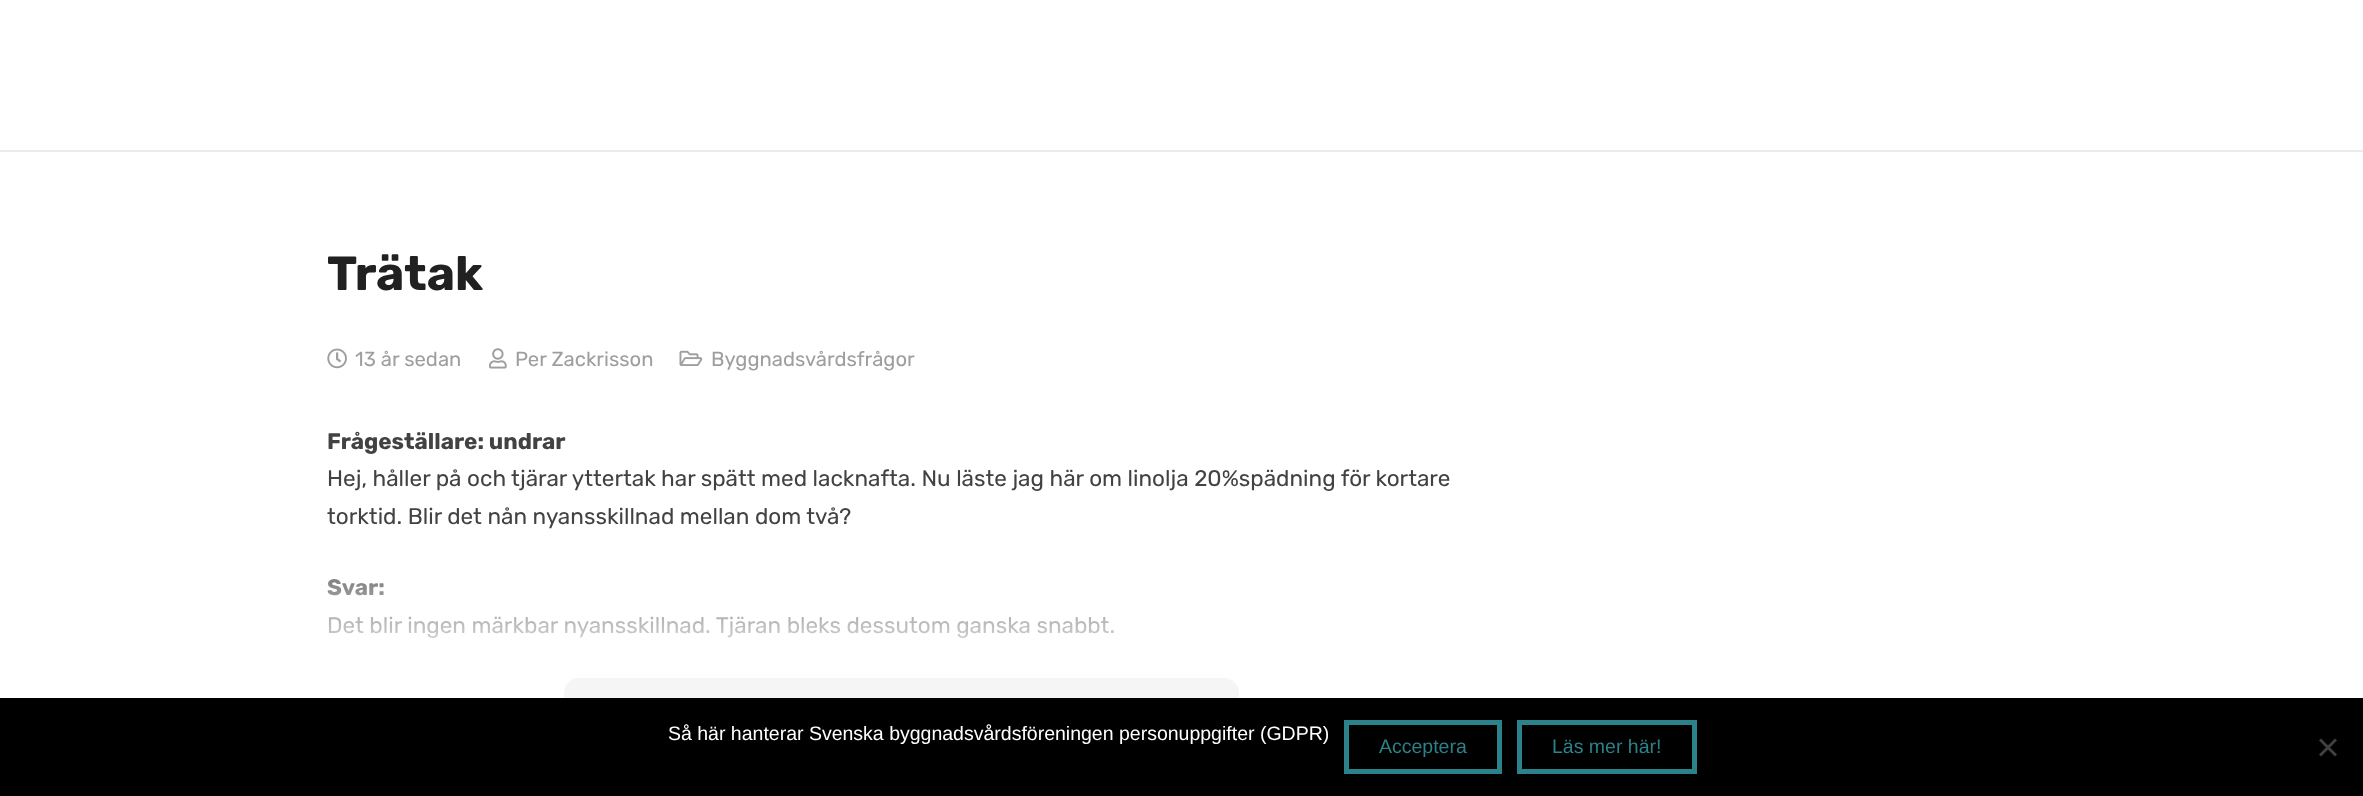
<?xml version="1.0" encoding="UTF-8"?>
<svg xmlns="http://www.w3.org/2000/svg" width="2363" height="796">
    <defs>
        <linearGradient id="g1" gradientUnits="userSpaceOnUse" x1="902" y1="678" x2="902" y2="528"><stop offset="0" stop-color="#FFFFFF"/><stop offset="1" stop-color="#FFFFFF" stop-opacity="0"/></linearGradient>
    </defs>
    <rect width="100%" height="100%" fill="#FFFFFF"/>
    <rect x="0" y="150" width="2363" height="2" fill="#EBEBEB"/>
    <text x="327" y="290" font-family="Rubik" font-size="48" font-weight="700" fill="#212121">Trätak</text>
    <image x="327" y="348" width="20" height="21" href="img_01.png"/>
    <text x="355" y="366" font-family="Rubik" font-size="20.25" fill="#9E9E9E">13 år sedan</text>
    <image x="489" y="348" width="18" height="21" href="img_02.png"/>
    <text x="515" y="366" font-family="Rubik" font-size="20.25" fill="#9E9E9E">Per Zackrisson</text>
    <image x="679" y="350" width="24" height="16" href="img_03.png"/>
    <text x="711" y="366" font-family="Rubik" font-size="20.25" fill="#9E9E9E">Byggnadsvårdsfrågor</text>
    <text x="327" y="449" font-family="Rubik" font-size="22.5" font-weight="700" fill="#424242">Frågeställare: undrar</text>
    <text font-family="Rubik" font-size="22.5" fill="#424242">
        <tspan x="327" y="486">Hej, håller på och tjärar yttertak har spätt med lacknafta. Nu läste jag här om linolja 20%spädning för kortare</tspan>
        <tspan x="327" y="524">torktid. Blir det nån nyansskillnad mellan dom två?</tspan>
    </text>
    <text x="327" y="595" font-family="Rubik" font-size="22.5" font-weight="700" fill="#424242">Svar:</text>
    <text x="327" y="633" font-family="Rubik" font-size="22.5" fill="#424242">Det blir ingen märkbar nyansskillnad. Tjäran bleks dessutom ganska snabbt.</text>
    <rect x="327" y="579" width="787" height="59" fill="url(#g1)"/>
    <rect x="564" y="678" width="675" height="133" rx="15" fill="#F5F5F5"/>
    <rect x="0" y="698" width="2363" height="98" fill="#000000"/>
    <text x="668" y="740" font-family="Liberation Sans" font-size="19.5" fill="#FFFFFF">Så här hanterar Svenska byggnadsvårdsföreningen personuppgifter (GDPR)</text>
    <rect x="1346.5" y="722.5" width="153" height="49" fill="none" stroke="#2B828A" stroke-width="5"/>
    <text x="1379" y="753" font-family="Liberation Sans" font-size="19.5" fill="#2B828A">Acceptera</text>
    <rect x="1519.5" y="722.5" width="175" height="49" fill="none" stroke="#2B828A" stroke-width="5"/>
    <text x="1552" y="753" font-family="Liberation Sans" font-size="19.5" fill="#2B828A">Läs mer här!</text>
    <path d="M 2335 738.5 L 2337 740.5 L 2321 756.5 L 2319 754.5 Z" fill="#404040"/>
    <path d="M 2319 740.5 L 2321 738.5 L 2337 754.5 L 2335 756.5 Z" fill="#404040"/>
</svg>
